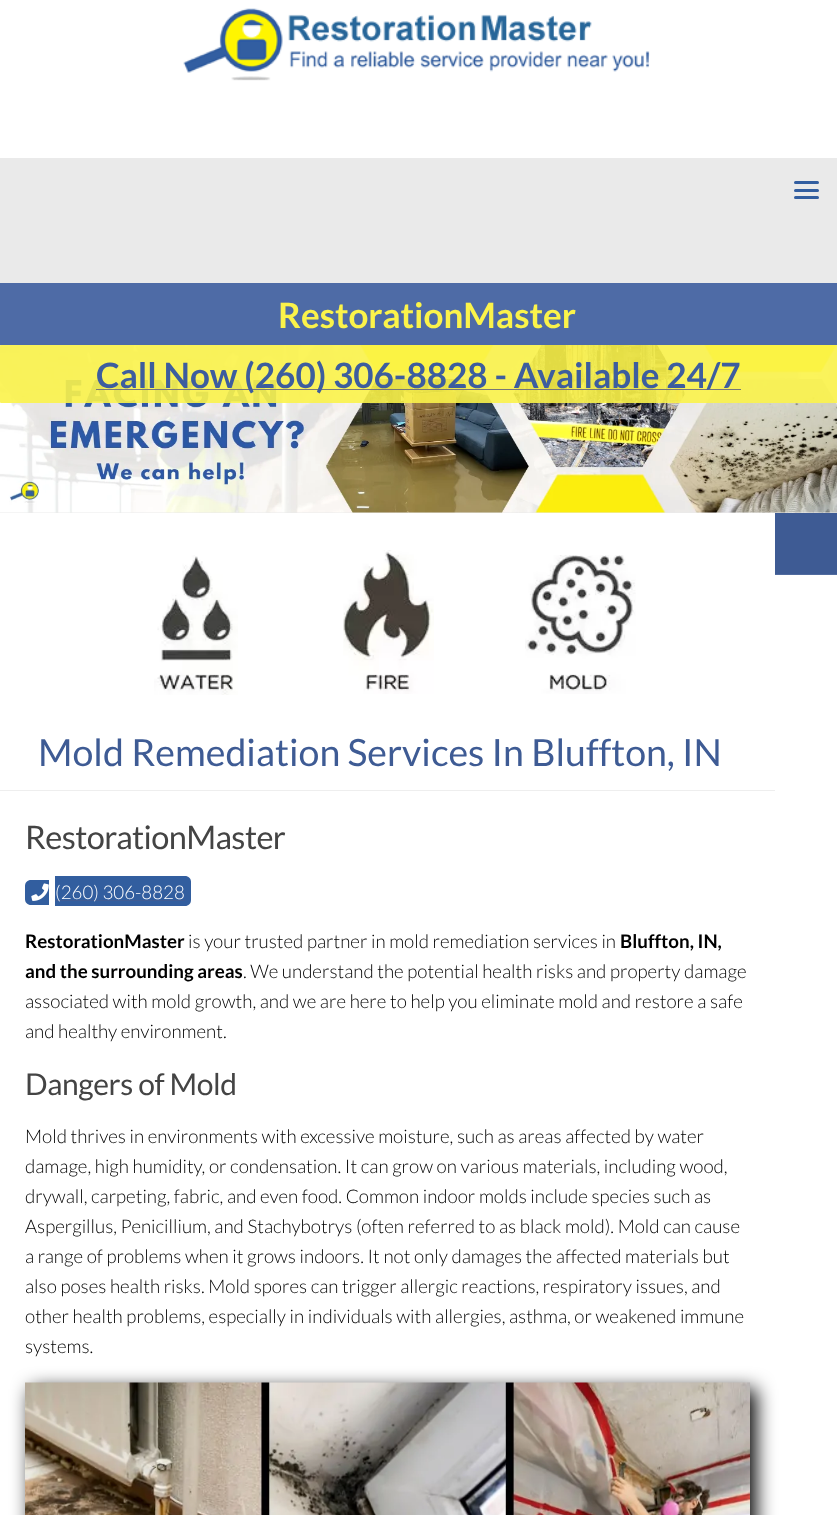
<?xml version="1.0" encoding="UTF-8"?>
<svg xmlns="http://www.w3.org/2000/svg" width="837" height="1515">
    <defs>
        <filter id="blur1" x="-50%" y="-200%" width="200%" height="500%"><feGaussianBlur stdDeviation="9.5"/></filter>
    </defs>
    <rect width="100%" height="100%" fill="#EAEAEA"/>
    <rect x="0" y="0" width="837" height="158" fill="#FFFFFF"/>
    <image x="183" y="8" width="467" height="73" href="img_01.png"/>
    <rect x="794" y="181" width="25" height="3" rx="1.5" fill="#325EA0"/>
    <rect x="794" y="189" width="25" height="3" rx="1.5" fill="#325EA0"/>
    <rect x="794" y="196" width="25" height="3" rx="1.5" fill="#325EA0"/>
    <rect x="0" y="283" width="837" height="62" fill="#4E6BA6"/>
    <text x="278" y="328" font-family="Lato" font-size="35" font-weight="700" fill="#FBF34A">RestorationMaster</text>
    <image x="0" y="345" width="837" height="168" href="img_02.png"/>
    <rect x="0" y="345" width="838" height="58" rx="1" fill="#FBF34A" fill-opacity="0.9"/>
    <rect x="96" y="389" width="645" height="1" fill="#777777"/>
    <text x="96" y="388" font-family="Lato" font-size="35" font-weight="700" fill="#3D5D9E">Call Now (260) 306-8828 - Available 24/7</text>
    <rect x="0" y="513" width="837" height="1002" fill="#FFFFFF"/>
    <rect x="775" y="513" width="62" height="61" fill="#3E5B94"/>
    <rect x="775" y="574" width="62" height="1" fill="#516B9F"/>
    <rect x="0" y="790" width="775" height="1" fill="#EEEEEE"/>
    <image x="154" y="555" width="84" height="140" href="img_03.png"/>
    <image x="343" y="550" width="91" height="144" href="img_04.png"/>
    <image x="525" y="555" width="111" height="139" href="img_05.png"/>
    <text x="38" y="766" font-family="Lato" font-size="37.5" fill="#3E5B94">Mold Remediation Services In Bluffton, IN</text>
    <text x="25" y="849" font-family="Lato" font-size="32.5" letter-spacing="-0.6" fill="#444444">RestorationMaster</text>
    <path d="M 31 880 H 49 V 905 H 31 C 27.5 905 25 902.5 25 899 V 886 C 25 882.5 27.5 880 31 880 Z" fill="#325E9F"/>
    <path d="M 55 876 H 185 C 188.5 876 191 878.5 191 882 V 900 C 191 903.5 188.5 906 185 906 H 55 Z" fill="#325E9F"/>
    <image x="31" y="883" width="18" height="18" href="img_06.png"/>
    <rect x="55" y="900" width="130" height="1" fill="#3E5B94"/>
    <text x="55" y="899" font-family="Lato" font-size="18.75" font-weight="300" fill="#FFFFFF">(260) 306-8828</text>
    <text x="25" y="948" font-family="Lato" font-size="18.75" font-weight="700" fill="#000000">RestorationMaster</text>
    <text x="188" y="948" font-family="Lato" font-size="18.75" font-weight="300" fill="#000000">is your trusted partner in mold remediation services in</text>
    <text x="620" y="948" font-family="Lato" font-size="18.75" font-weight="700" fill="#000000">Bluffton, IN,</text>
    <text x="25" y="978" font-family="Lato" font-size="18.75" font-weight="700" fill="#000000">and the surrounding areas</text>
    <text x="243" y="978" font-family="Lato" font-size="18.75" font-weight="300" fill="#000000">. We understand the potential health risks and property damage</text>
    <text font-family="Lato" font-size="18.75" font-weight="300" fill="#000000">
        <tspan x="25" y="1008">associated with mold growth, and we are here to help you eliminate mold and restore a safe</tspan>
        <tspan x="25" y="1038">and healthy environment.</tspan>
    </text>
    <text x="25" y="1095" font-family="Lato" font-size="30" letter-spacing="-0.4" fill="#444444">Dangers of Mold</text>
    <text font-family="Lato" font-size="18.75" font-weight="300" fill="#000000">
        <tspan x="25" y="1143">Mold thrives in environments with excessive moisture, such as areas affected by water</tspan>
        <tspan x="25" y="1173">damage, high humidity, or condensation. It can grow on various materials, including wood,</tspan>
        <tspan x="25" y="1203">drywall, carpeting, fabric, and even food. Common indoor molds include species such as</tspan>
        <tspan x="25" y="1233">Aspergillus, Penicillium, and Stachybotrys (often referred to as black mold). Mold can cause</tspan>
        <tspan x="25" y="1263">a range of problems when it grows indoors. It not only damages the affected materials but</tspan>
        <tspan x="25" y="1293">also poses health risks. Mold spores can trigger allergic reactions, respiratory issues, and</tspan>
        <tspan x="25" y="1323">other health problems, especially in individuals with allergies, asthma, or weakened immune</tspan>
        <tspan x="25" y="1353">systems.</tspan>
    </text>
    <rect x="31" y="1389" width="725" height="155" fill="#000000" filter="url(#blur1)"/>
    <image x="25" y="1382" width="725" height="133" href="img_07.png"/>
</svg>
